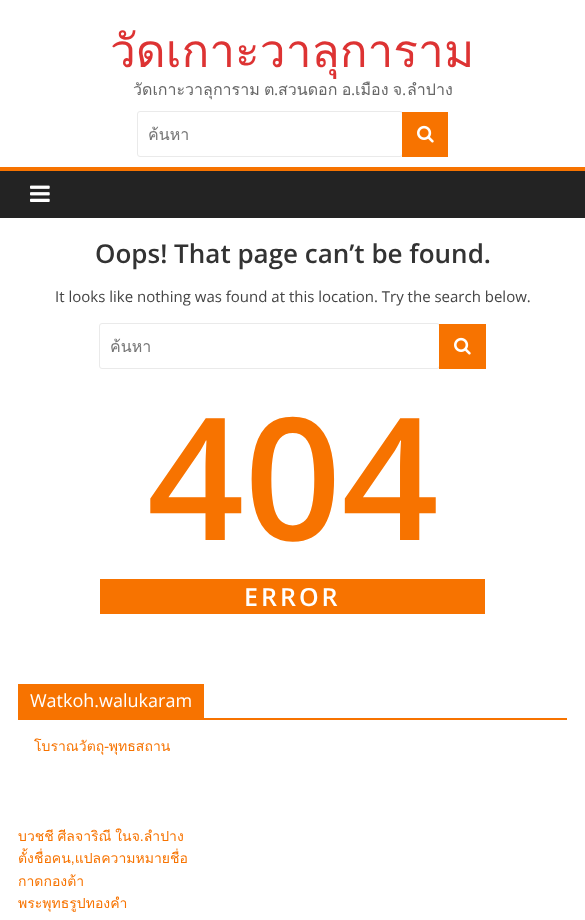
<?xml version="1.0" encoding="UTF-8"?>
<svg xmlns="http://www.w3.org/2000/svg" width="585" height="920">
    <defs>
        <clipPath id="clip1"><rect x="148" y="122" width="200" height="25"/></clipPath>
        <clipPath id="clip2"><rect x="110" y="334" width="275" height="25"/></clipPath>
    </defs>
    <rect width="100%" height="100%" fill="#FFFFFF"/>
    <text x="110" y="67" font-family="Loma" font-size="46" fill="#DD3333">วัดเกาะวาลุการาม</text>
    <text x="133" y="95" word-spacing="-1" font-family="Loma" font-size="16" fill="#666666">วัดเกาะวาลุการาม ต</text>
    <text x="274" y="95" font-family="Open Sans" font-size="16" fill="#666666">.</text>
    <text x="278" y="95" word-spacing="-1" font-family="Loma" font-size="16" fill="#666666">สวนดอก อ</text>
    <text x="351" y="95" font-family="Open Sans" font-size="16" fill="#666666">.</text>
    <text x="355" y="95" word-spacing="-1" font-family="Loma" font-size="16" fill="#666666">เมือง จ</text>
    <text x="402" y="95" font-family="Open Sans" font-size="16" fill="#666666">.</text>
    <text x="407" y="95" font-family="Loma" font-size="16" fill="#666666">ลำปาง</text>
    <rect x="137.5" y="111.5" width="265" height="45" rx="2.5" fill="none" stroke="#EAEAEA"/>
    <g clip-path="url(#clip1)">
        <text x="148" y="140" font-family="Loma" font-size="16" fill="#757575">ค้นหา</text>
    </g>
    <rect x="402" y="112" width="46" height="45" fill="#F77300"/>
    <image x="417" y="125" width="17" height="18" href="img_01.png"/>
    <rect x="0" y="171" width="585" height="47" fill="#232323"/>
    <rect x="0" y="167" width="585" height="4" fill="#F77300"/>
    <image x="30" y="185" width="20" height="17" href="img_02.png"/>
    <text x="95" y="263" font-family="Open Sans" font-size="26" font-weight="600" fill="#333333">Oops! That page can’t be found.</text>
    <text x="55" y="302" font-family="Open Sans" font-size="15" fill="#444444">It looks like nothing was found at this location. Try the search below.</text>
    <rect x="99.5" y="323.5" width="340" height="45" rx="2.5" fill="none" stroke="#EAEAEA"/>
    <g clip-path="url(#clip2)">
        <text x="110" y="352" font-family="Loma" font-size="16" fill="#757575">ค้นหา</text>
    </g>
    <rect x="439" y="324" width="47" height="45" fill="#F77300"/>
    <image x="454" y="337" width="17" height="18" href="img_01.png"/>
    <text x="147" y="540" font-family="Open Sans" font-size="170" font-weight="600" fill="#F77300">404</text>
    <rect x="100" y="579" width="385" height="35" fill="#F77300"/>
    <text x="244" y="606" font-family="Open Sans" font-size="25" font-weight="600" letter-spacing="3" fill="#FFFFFF">ERROR</text>
    <rect x="18" y="718" width="549" height="2" fill="#F77300"/>
    <rect x="18" y="684" width="186" height="34" fill="#F77300"/>
    <text x="30" y="707" font-family="Open Sans" font-size="18" fill="#FFFFFF">Watkoh.walukaram</text>
    <text x="34" y="751" font-family="Loma" font-size="14" fill="#F77300">โบราณวัตถุ-พุทธสถาน</text>
    <text font-family="Loma" font-size="14" fill="#F77300">
        <tspan x="18" y="841" word-spacing="-1">บวชชี ศีลจาริณี ในจ.ลำปาง</tspan>
        <tspan x="18" y="863">ตั้งชื่อคน,แปลความหมายชื่อ</tspan>
        <tspan x="18" y="886">กาดกองต้า</tspan>
        <tspan x="18" y="908">พระพุทธรูปทองคำ</tspan>
    </text>
</svg>
